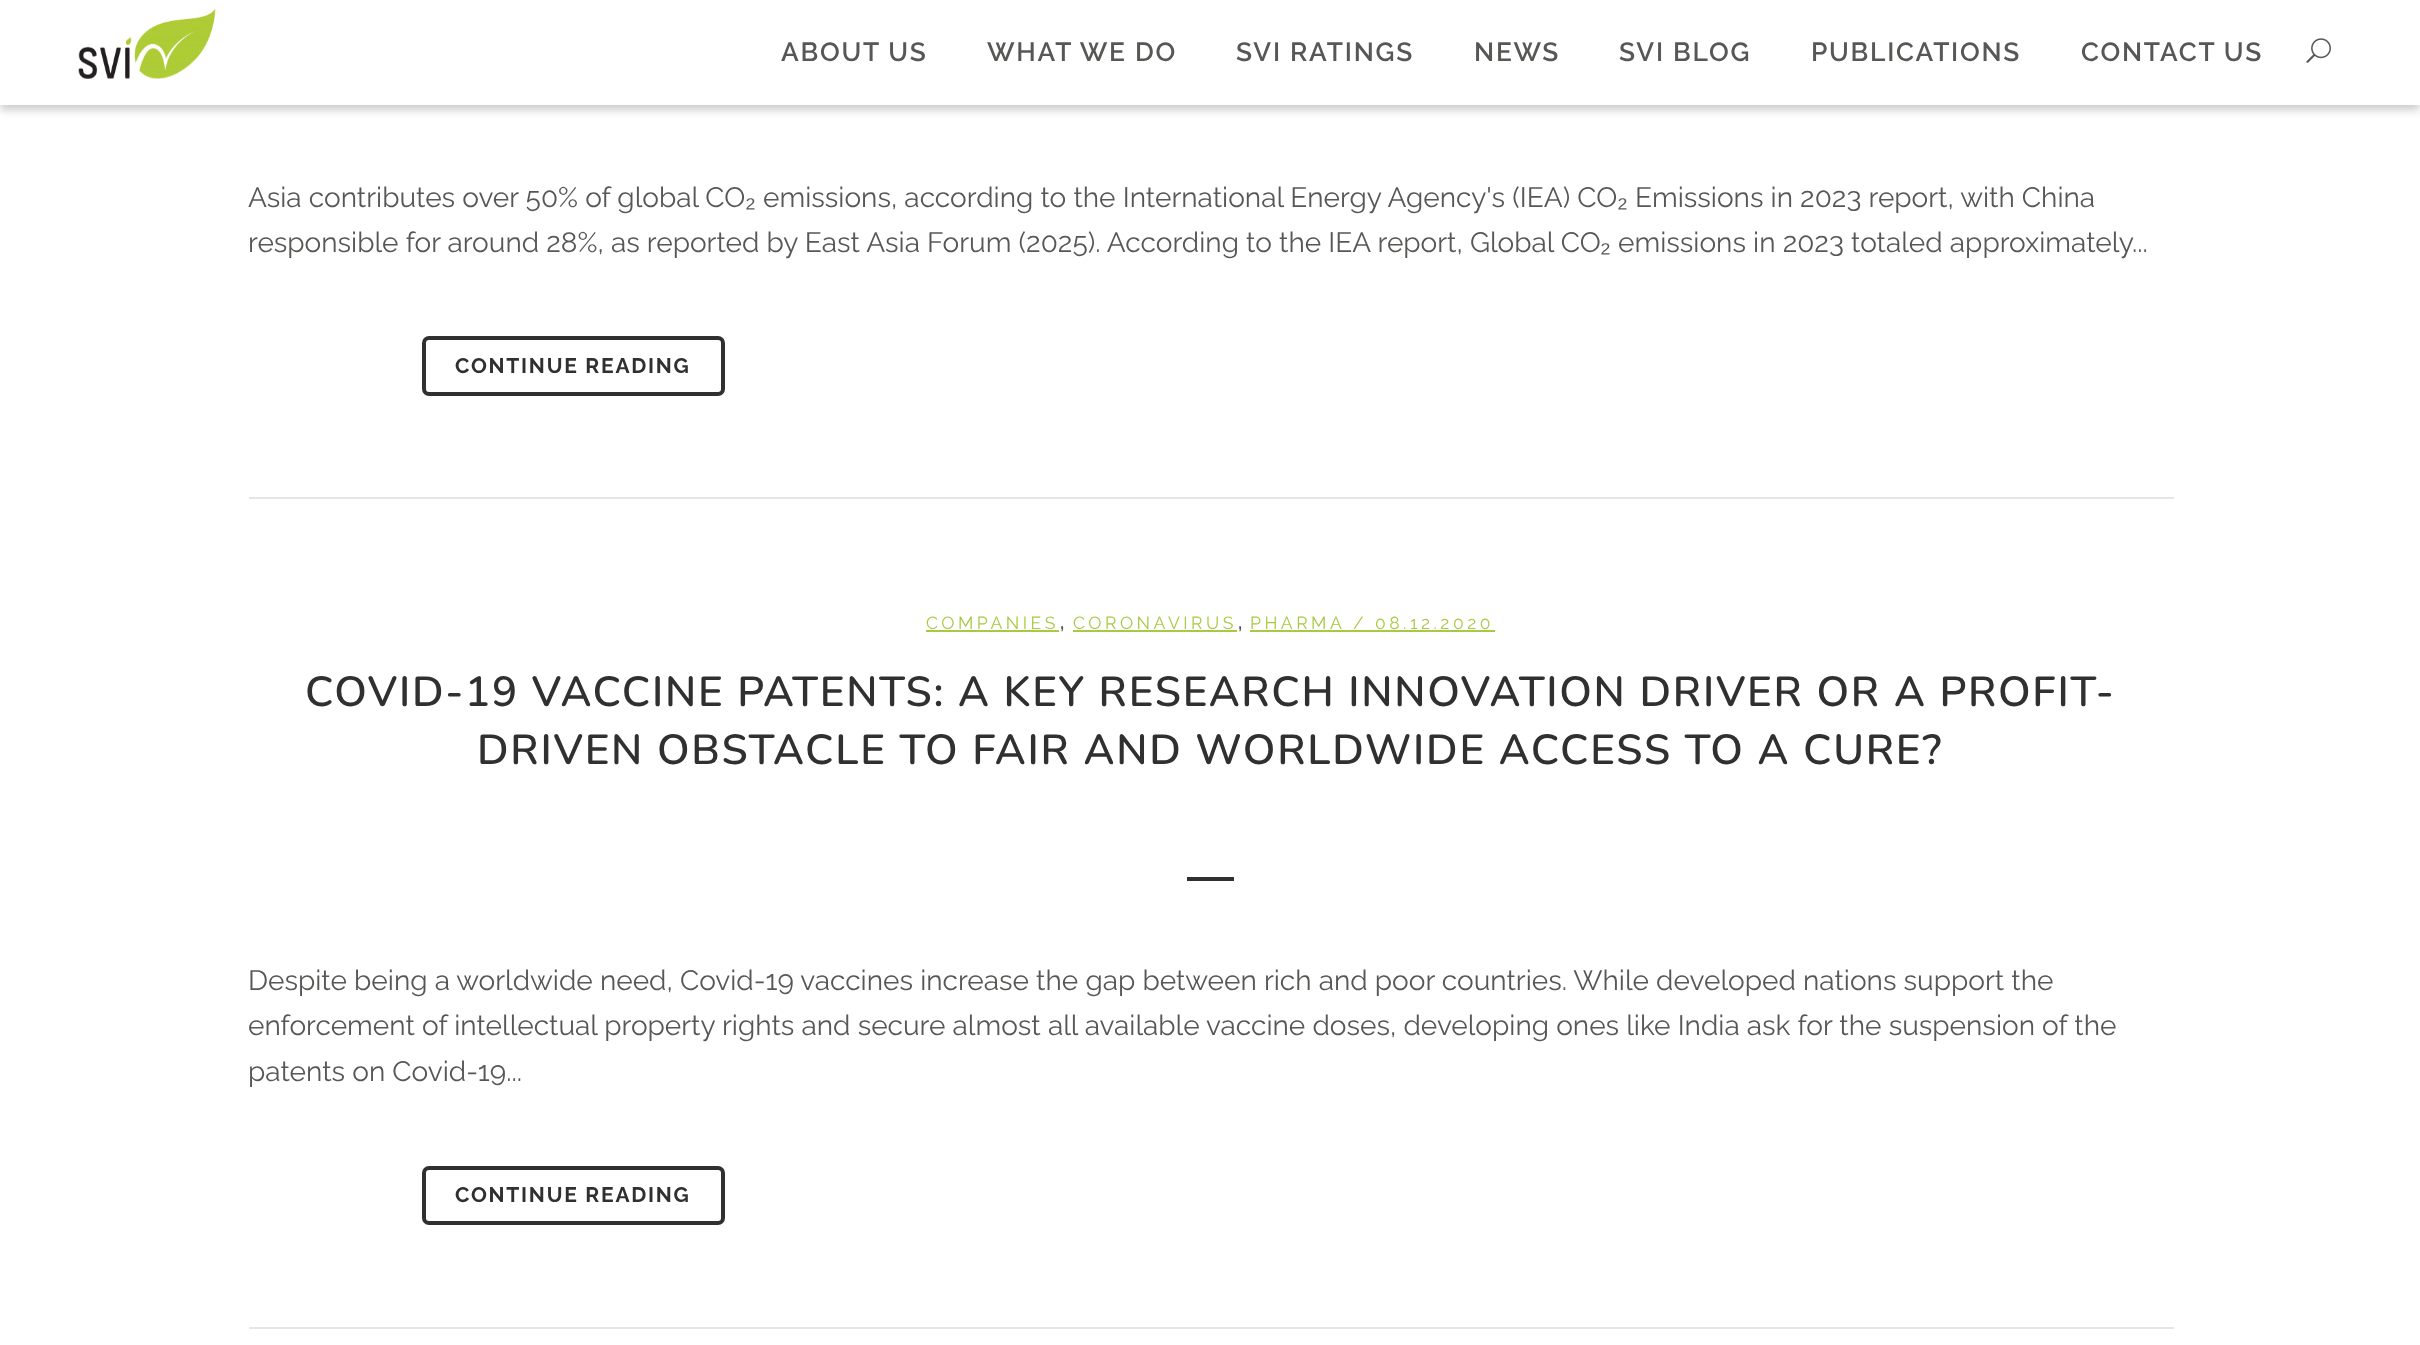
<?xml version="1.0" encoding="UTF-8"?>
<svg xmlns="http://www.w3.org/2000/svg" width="2420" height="1345">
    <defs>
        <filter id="blur1" x="-50%" y="-200%" width="200%" height="500%"><feGaussianBlur stdDeviation="4.5"/></filter>
    </defs>
    <rect width="100%" height="100%" fill="#FFFFFF"/>
    <rect x="0" y="5" width="2420" height="105" fill="#000000" fill-opacity="0.2" filter="url(#blur1)"/>
    <rect x="0" y="0" width="2420" height="105" fill="#FFFFFF"/>
    <image x="78" y="8" width="138" height="71" href="img_01.png"/>
    <text x="781" y="61" font-family="Raleway" font-size="26.25" font-weight="600" letter-spacing="1.75" fill="#575756">ABOUT US</text>
    <text x="987" y="61" font-family="Raleway" font-size="26.25" font-weight="600" letter-spacing="1.75" fill="#575756">WHAT WE DO</text>
    <text x="1236" y="61" font-family="Raleway" font-size="26.25" font-weight="600" letter-spacing="1.75" fill="#575756">SVI RATINGS</text>
    <text x="1474" y="61" font-family="Raleway" font-size="26.25" font-weight="600" letter-spacing="1.75" fill="#575756">NEWS</text>
    <text x="1619" y="61" font-family="Raleway" font-size="26.25" font-weight="600" letter-spacing="1.75" fill="#575756">SVI BLOG</text>
    <text x="1811" y="61" font-family="Raleway" font-size="26.25" font-weight="600" letter-spacing="1.75" fill="#575756">PUBLICATIONS</text>
    <text x="2081" y="61" font-family="Raleway" font-size="26.25" font-weight="600" letter-spacing="1.75" fill="#575756">CONTACT US</text>
    <image x="2306" y="38" width="25" height="25" href="img_02.png"/>
    <rect x="249" y="497" width="1925" height="2" fill="#E5E5E5"/>
    <text x="248" y="207" font-family="Raleway" font-size="28" font-weight="100" fill="#575756">Asia contributes over 50% of global CO</text>
    <text x="745" y="207" font-family="Liberation Sans" font-size="28" fill="#575756">₂</text>
    <text x="763" y="207" font-family="Raleway" font-size="28" font-weight="100" fill="#575756">emissions, according to the International Energy Agency's (IEA) CO</text>
    <text x="1617" y="207" font-family="Liberation Sans" font-size="28" fill="#575756">₂</text>
    <text x="1635" y="207" font-family="Raleway" font-size="28" font-weight="100" fill="#575756">Emissions in 2023 report, with China</text>
    <text x="248" y="252" font-family="Raleway" font-size="28" font-weight="100" fill="#575756">responsible for around 28%, as reported by East Asia Forum (2025). According to the IEA report, Global CO</text>
    <text x="1600" y="252" font-family="Liberation Sans" font-size="28" fill="#575756">₂</text>
    <text x="1618" y="252" font-family="Raleway" font-size="28" font-weight="100" fill="#575756">emissions in 2023 totaled approximately...</text>
    <rect x="424" y="338" width="299" height="56" rx="5" fill="none" stroke="#303030" stroke-width="4"/>
    <text x="455" y="373" font-family="Raleway" font-size="21" font-weight="700" letter-spacing="1.75" fill="#303030">CONTINUE READING</text>
    <rect x="249" y="1327" width="1925" height="2" fill="#E5E5E5"/>
    <text x="926" y="629" font-family="Raleway" font-size="17.5" font-weight="100" letter-spacing="3.5" fill="#A8C944">COMPANIES</text>
    <rect x="926" y="630" width="133" height="2" fill="#A8C944"/>
    <text x="1059" y="629" font-family="Raleway" font-size="28" font-weight="100" fill="#575756">,</text>
    <text x="1073" y="629" font-family="Raleway" font-size="17.5" font-weight="100" letter-spacing="3.5" fill="#A8C944">CORONAVIRUS</text>
    <rect x="1073" y="630" width="164" height="2" fill="#A8C944"/>
    <text x="1237" y="629" font-family="Raleway" font-size="28" font-weight="100" fill="#575756">,</text>
    <text x="1250" y="629" font-family="Raleway" font-size="17.5" font-weight="100" letter-spacing="3.5" fill="#A8C944">PHARMA</text>
    <rect x="1250" y="630" width="245" height="2" fill="#A8C944"/>
    <text x="1353" y="629" font-family="Raleway" font-size="17.5" font-weight="100" letter-spacing="3.5" fill="#A8C944">/ 08.12.2020</text>
    <text x="305" y="706" font-family="Nunito" font-size="42" font-weight="600" letter-spacing="1.75" fill="#303030">COVID-19 VACCINE PATENTS: A KEY RESEARCH INNOVATION DRIVER OR A PROFIT-</text>
    <text x="477" y="764" font-family="Nunito" font-size="42" font-weight="600" letter-spacing="1.75" fill="#303030">DRIVEN OBSTACLE TO FAIR AND WORLDWIDE ACCESS TO A CURE?</text>
    <rect x="1187" y="877" width="47" height="4" fill="#303030"/>
    <text font-family="Raleway" font-size="28" font-weight="100" fill="#575756">
        <tspan x="248" y="990">Despite being a worldwide need, Covid-19 vaccines increase the gap between rich and poor countries. While developed nations support the</tspan>
        <tspan x="248" y="1035">enforcement of intellectual property rights and secure almost all available vaccine doses, developing ones like India ask for the suspension of the</tspan>
        <tspan x="248" y="1081">patents on Covid-19...</tspan>
    </text>
    <rect x="424" y="1168" width="299" height="55" rx="5" fill="none" stroke="#303030" stroke-width="4"/>
    <text x="455" y="1202" font-family="Raleway" font-size="21" font-weight="700" letter-spacing="1.75" fill="#303030">CONTINUE READING</text>
</svg>
